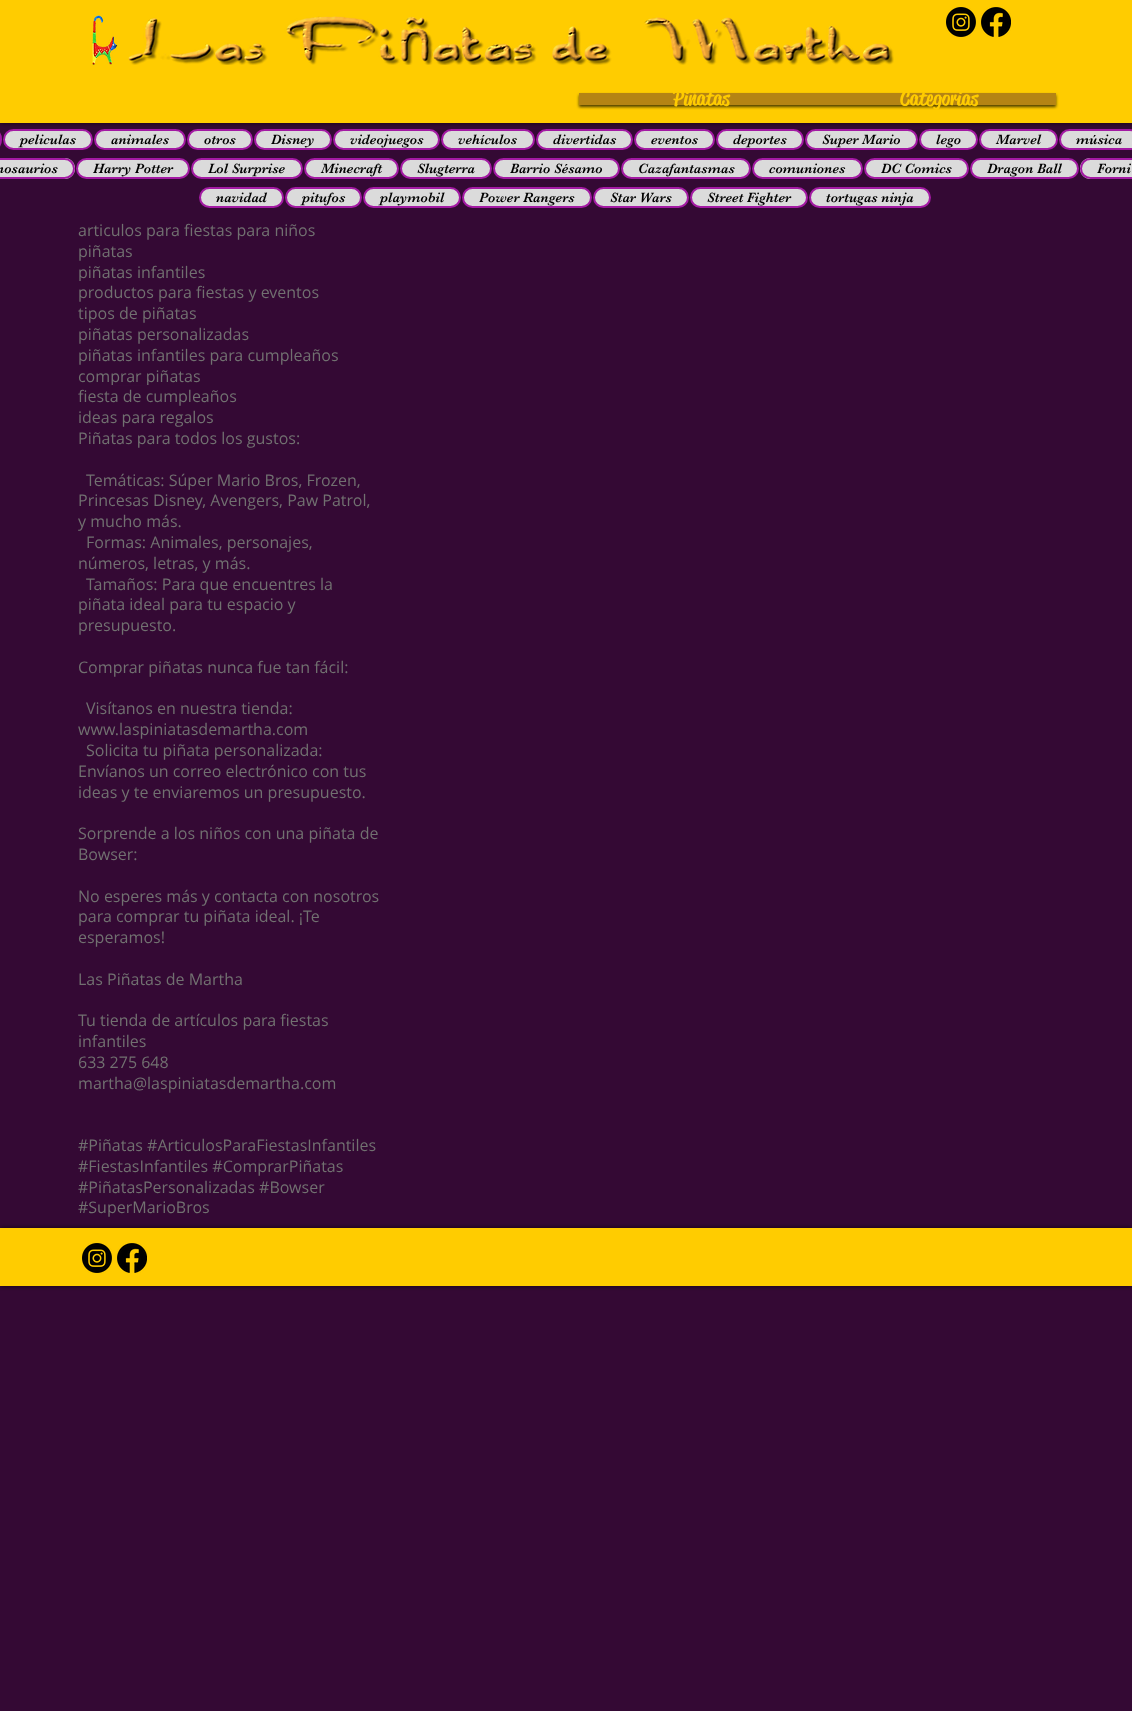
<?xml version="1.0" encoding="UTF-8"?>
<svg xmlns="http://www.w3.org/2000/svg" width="1132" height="1711">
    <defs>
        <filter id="blur1" x="-50%" y="-200%" width="200%" height="500%"><feGaussianBlur stdDeviation="2.5"/></filter>
        <filter id="blur2" x="-50%" y="-200%" width="200%" height="500%"><feGaussianBlur stdDeviation="1.5"/></filter>
    </defs>
    <rect width="100%" height="100%" fill="#340934"/>
    <rect x="-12" y="130" width="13" height="19" rx="9.5" fill="none" stroke="#A31AA3" stroke-width="2"/>
    <rect x="4" y="130" width="88" height="19" rx="9.5" fill="#DBDBDB" stroke="#A31AA3" stroke-width="2"/>
    <rect x="95" y="130" width="90" height="19" rx="9.5" fill="#DBDBDB" stroke="#A31AA3" stroke-width="2"/>
    <rect x="188" y="130" width="64" height="19" rx="9.5" fill="#DBDBDB" stroke="#A31AA3" stroke-width="2"/>
    <rect x="255" y="130" width="76" height="19" rx="9.5" fill="#DBDBDB" stroke="#A31AA3" stroke-width="2"/>
    <rect x="334" y="130" width="105" height="19" rx="9.5" fill="#DBDBDB" stroke="#A31AA3" stroke-width="2"/>
    <rect x="442" y="130" width="92" height="19" rx="9.5" fill="#DBDBDB" stroke="#A31AA3" stroke-width="2"/>
    <rect x="537" y="130" width="95" height="19" rx="9.5" fill="#DBDBDB" stroke="#A31AA3" stroke-width="2"/>
    <rect x="635" y="130" width="79" height="19" rx="9.5" fill="#DBDBDB" stroke="#A31AA3" stroke-width="2"/>
    <rect x="717" y="130" width="86" height="19" rx="9.5" fill="#DBDBDB" stroke="#A31AA3" stroke-width="2"/>
    <rect x="806" y="130" width="111" height="19" rx="9.5" fill="#DBDBDB" stroke="#A31AA3" stroke-width="2"/>
    <rect x="920" y="130" width="57" height="19" rx="9.5" fill="#DBDBDB" stroke="#A31AA3" stroke-width="2"/>
    <rect x="980" y="130" width="77" height="19" rx="9.5" fill="#DBDBDB" stroke="#A31AA3" stroke-width="2"/>
    <rect x="1060" y="130" width="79" height="19" rx="9.5" fill="#DBDBDB" stroke="#A31AA3" stroke-width="2"/>
    <rect x="0" y="0" width="1132" height="123" fill="#000000" fill-opacity="0.7" filter="url(#blur1)"/>
    <rect x="0" y="0" width="1132" height="123" fill="#FFCC00"/>
    <image x="92" y="15" width="26" height="50" href="img_01.png"/>
    <image x="128" y="16" width="766" height="49" href="img_02.png"/>
    <image x="946" y="7" width="30" height="30" href="img_03.png"/>
    <image x="981" y="7" width="30" height="30" href="img_04.png"/>
    <rect x="579" y="95" width="477" height="12" fill="#000000" fill-opacity="0.7" filter="url(#blur2)"/>
    <rect x="579" y="93" width="477" height="12" fill="#B58414"/>
    <text x="673" y="105" font-family="'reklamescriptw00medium'" font-size="20" font-weight="500" fill="#FFCC00">Piñatas</text>
    <text x="900" y="105" font-family="'reklamescriptw00medium'" font-size="20" font-weight="500" fill="#FFCC00">Categorias</text>
    <text x="20" y="144" font-family="'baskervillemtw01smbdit'" font-size="14" fill="#000000">peliculas</text>
    <text x="111" y="144" font-family="'baskervillemtw01smbdit'" font-size="14" fill="#000000">animales</text>
    <text x="204" y="144" font-family="'baskervillemtw01smbdit'" font-size="14" fill="#000000">otros</text>
    <text x="271" y="144" font-family="'baskervillemtw01smbdit'" font-size="14" fill="#000000">Disney</text>
    <text x="350" y="144" font-family="'baskervillemtw01smbdit'" font-size="14" fill="#000000">videojuegos</text>
    <text x="458" y="144" font-family="'baskervillemtw01smbdit'" font-size="14" fill="#000000">vehículos</text>
    <text x="553" y="144" font-family="'baskervillemtw01smbdit'" font-size="14" fill="#000000">divertidas</text>
    <text x="651" y="144" font-family="'baskervillemtw01smbdit'" font-size="14" fill="#000000">eventos</text>
    <text x="733" y="144" font-family="'baskervillemtw01smbdit'" font-size="14" fill="#000000">deportes</text>
    <text x="822" y="144" font-family="'baskervillemtw01smbdit'" font-size="14" fill="#000000">Super Mario</text>
    <text x="936" y="144" font-family="'baskervillemtw01smbdit'" font-size="14" fill="#000000">lego</text>
    <text x="996" y="144" font-family="'baskervillemtw01smbdit'" font-size="14" fill="#000000">Marvel</text>
    <text x="1076" y="144" font-family="'baskervillemtw01smbdit'" font-size="14" fill="#000000">música</text>
    <path d="M 0 158 H 64.5 C 70.5 158 75 162.5 75 168.5 C 75 174.5 70.5 179 64.5 179 H 0 Z" fill="#DBDBDB"/>
    <rect x="-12" y="159" width="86" height="19" rx="9.5" fill="none" stroke="#A31AA3" stroke-width="2"/>
    <text x="-4" y="173" font-family="'baskervillemtw01smbdit'" font-size="14" fill="#000000">nosaurios</text>
    <rect x="77" y="159" width="112" height="19" rx="9.5" fill="#DBDBDB" stroke="#A31AA3" stroke-width="2"/>
    <text x="93" y="173" font-family="'baskervillemtw01smbdit'" font-size="14" fill="#000000">Harry Potter</text>
    <rect x="192" y="159" width="110" height="19" rx="9.5" fill="#DBDBDB" stroke="#A31AA3" stroke-width="2"/>
    <text x="208" y="173" font-family="'baskervillemtw01smbdit'" font-size="14" fill="#000000">Lol Surprise</text>
    <rect x="305" y="159" width="93" height="19" rx="9.5" fill="#DBDBDB" stroke="#A31AA3" stroke-width="2"/>
    <text x="321" y="173" font-family="'baskervillemtw01smbdit'" font-size="14" fill="#000000">Minecraft</text>
    <rect x="401" y="159" width="90" height="19" rx="9.5" fill="#DBDBDB" stroke="#A31AA3" stroke-width="2"/>
    <text x="417" y="173" font-family="'baskervillemtw01smbdit'" font-size="14" fill="#000000">Slugterra</text>
    <rect x="494" y="159" width="125" height="19" rx="9.5" fill="#DBDBDB" stroke="#A31AA3" stroke-width="2"/>
    <text x="510" y="173" font-family="'baskervillemtw01smbdit'" font-size="14" fill="#000000">Barrio Sésamo</text>
    <rect x="622" y="159" width="128" height="19" rx="9.5" fill="#DBDBDB" stroke="#A31AA3" stroke-width="2"/>
    <text x="638" y="173" font-family="'baskervillemtw01smbdit'" font-size="14" fill="#000000">Cazafantasmas</text>
    <rect x="753" y="159" width="109" height="19" rx="9.5" fill="#DBDBDB" stroke="#A31AA3" stroke-width="2"/>
    <text x="769" y="173" font-family="'baskervillemtw01smbdit'" font-size="14" fill="#000000">comuniones</text>
    <rect x="865" y="159" width="103" height="19" rx="9.5" fill="#DBDBDB" stroke="#A31AA3" stroke-width="2"/>
    <text x="881" y="173" font-family="'baskervillemtw01smbdit'" font-size="14" fill="#000000">DC Comics</text>
    <rect x="971" y="159" width="107" height="19" rx="9.5" fill="#DBDBDB" stroke="#A31AA3" stroke-width="2"/>
    <text x="987" y="173" font-family="'baskervillemtw01smbdit'" font-size="14" fill="#000000">Dragon Ball</text>
    <path d="M 1090.5 158 H 1132 V 179 H 1090.5 C 1084.5 179 1080 174.5 1080 168.5 C 1080 162.5 1084.5 158 1090.5 158 Z" fill="#DBDBDB"/>
    <rect x="1081" y="159" width="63" height="19" rx="9.5" fill="none" stroke="#A31AA3" stroke-width="2"/>
    <text x="1097" y="173" font-family="'baskervillemtw01smbdit'" font-size="14" fill="#000000">Forni</text>
    <rect x="200" y="188" width="83" height="19" rx="9.5" fill="#DBDBDB" stroke="#A31AA3" stroke-width="2"/>
    <text x="216" y="202" font-family="'baskervillemtw01smbdit'" font-size="14" fill="#000000">navidad</text>
    <rect x="286" y="188" width="75" height="19" rx="9.5" fill="#DBDBDB" stroke="#A31AA3" stroke-width="2"/>
    <text x="302" y="202" font-family="'baskervillemtw01smbdit'" font-size="14" fill="#000000">pitufos</text>
    <rect x="364" y="188" width="96" height="19" rx="9.5" fill="#DBDBDB" stroke="#A31AA3" stroke-width="2"/>
    <text x="380" y="202" font-family="'baskervillemtw01smbdit'" font-size="14" fill="#000000">playmobil</text>
    <rect x="463" y="188" width="128" height="19" rx="9.5" fill="#DBDBDB" stroke="#A31AA3" stroke-width="2"/>
    <text x="479" y="202" font-family="'baskervillemtw01smbdit'" font-size="14" fill="#000000">Power Rangers</text>
    <rect x="594" y="188" width="94" height="19" rx="9.5" fill="#DBDBDB" stroke="#A31AA3" stroke-width="2"/>
    <text x="610" y="202" font-family="'baskervillemtw01smbdit'" font-size="14" fill="#000000">Star Wars</text>
    <rect x="691" y="188" width="116" height="19" rx="9.5" fill="#DBDBDB" stroke="#A31AA3" stroke-width="2"/>
    <text x="707" y="202" font-family="'baskervillemtw01smbdit'" font-size="14" fill="#000000">Street Fighter</text>
    <rect x="810" y="188" width="120" height="19" rx="9.5" fill="#DBDBDB" stroke="#A31AA3" stroke-width="2"/>
    <text x="826" y="202" font-family="'baskervillemtw01smbdit'" font-size="14" fill="#000000">tortugas ninja</text>
    <text font-family="Open Sans" font-size="16" fill="#717070">
        <tspan x="78" y="236">articulos para fiestas para niños</tspan>
        <tspan x="78" y="257">piñatas</tspan>
        <tspan x="78" y="278">piñatas infantiles</tspan>
        <tspan x="78" y="298">productos para fiestas y eventos</tspan>
    </text>
    <rect x="79" y="281" width="2" height="1" fill="#360936"/>
    <text font-family="Open Sans" font-size="16" fill="#717070">
        <tspan x="78" y="319">tipos de piñatas</tspan>
        <tspan x="78" y="340">piñatas personalizadas</tspan>
        <tspan x="78" y="361">piñatas infantiles para cumpleaños</tspan>
        <tspan x="78" y="382">comprar piñatas</tspan>
        <tspan x="78" y="402">fiesta de cumpleaños</tspan>
    </text>
    <rect x="111" y="385" width="38" height="1" fill="#360936"/>
    <text font-family="Open Sans" font-size="16" fill="#717070">
        <tspan x="78" y="423">ideas para regalos</tspan>
        <tspan x="78" y="444">Piñatas para todos los gustos:</tspan>
    </text>
    <text x="86" y="486" font-family="Open Sans" font-size="16" fill="#717070">Temáticas: Súper Mario Bros, Frozen,</text>
    <text font-family="Open Sans" font-size="16" fill="#717070">
        <tspan x="78" y="506">Princesas Disney, Avengers, Paw Patrol,</tspan>
        <tspan x="78" y="527">y mucho más.</tspan>
    </text>
    <text x="86" y="548" font-family="Open Sans" font-size="16" fill="#717070">Formas: Animales, personajes,</text>
    <text x="78" y="569" font-family="Open Sans" font-size="16" fill="#717070">números, letras, y más.</text>
    <text x="86" y="590" font-family="Open Sans" font-size="16" fill="#717070">Tamaños: Para que encuentres la</text>
    <text font-family="Open Sans" font-size="16" fill="#717070">
        <tspan x="78" y="610">piñata ideal para tu espacio y</tspan>
        <tspan x="78" y="631">presupuesto.</tspan>
    </text>
    <text x="78" y="673" font-family="Open Sans" font-size="16" fill="#717070">Comprar piñatas nunca fue tan fácil:</text>
    <text x="86" y="714" font-family="Open Sans" font-size="16" fill="#717070">Visítanos en nuestra tienda:</text>
    <text x="78" y="735" font-family="Open Sans" font-size="16" fill="#717070">www.laspiniatasdemartha.com</text>
    <text x="86" y="756" font-family="Open Sans" font-size="16" fill="#717070">Solicita tu piñata personalizada:</text>
    <text font-family="Open Sans" font-size="16" fill="#717070">
        <tspan x="78" y="777">Envíanos un correo electrónico con tus</tspan>
        <tspan x="78" y="798">ideas y te enviaremos un presupuesto.</tspan>
    </text>
    <text font-family="Open Sans" font-size="16" fill="#717070">
        <tspan x="78" y="839">Sorprende a los niños con una piñata de</tspan>
        <tspan x="78" y="860">Bowser:</tspan>
    </text>
    <text font-family="Open Sans" font-size="16" fill="#717070">
        <tspan x="78" y="902">No esperes más y contacta con nosotros</tspan>
        <tspan x="78" y="922">para comprar tu piñata ideal. ¡Te</tspan>
        <tspan x="78" y="943">esperamos!</tspan>
    </text>
    <text x="78" y="985" font-family="Open Sans" font-size="16" fill="#717070">Las Piñatas de Martha</text>
    <text font-family="Open Sans" font-size="16" fill="#717070">
        <tspan x="78" y="1026">Tu tienda de artículos para fiestas</tspan>
        <tspan x="78" y="1047">infantiles</tspan>
        <tspan x="78" y="1068">633 275 648</tspan>
        <tspan x="78" y="1089">martha@laspiniatasdemartha.com</tspan>
    </text>
    <text font-family="Open Sans" font-size="16" fill="#717070">
        <tspan x="78" y="1151">#Piñatas #ArticulosParaFiestasInfantiles</tspan>
        <tspan x="78" y="1172">#FiestasInfantiles #ComprarPiñatas</tspan>
        <tspan x="78" y="1193">#PiñatasPersonalizadas #Bowser</tspan>
        <tspan x="78" y="1213">#SuperMarioBros</tspan>
    </text>
    <rect x="0" y="1228" width="1132" height="58" fill="#000000" fill-opacity="0.7" filter="url(#blur1)"/>
    <rect x="0" y="1228" width="1132" height="58" fill="#FFCC00"/>
    <image x="82" y="1243" width="30" height="30" href="img_03.png"/>
    <image x="117" y="1243" width="30" height="30" href="img_04.png"/>
</svg>
